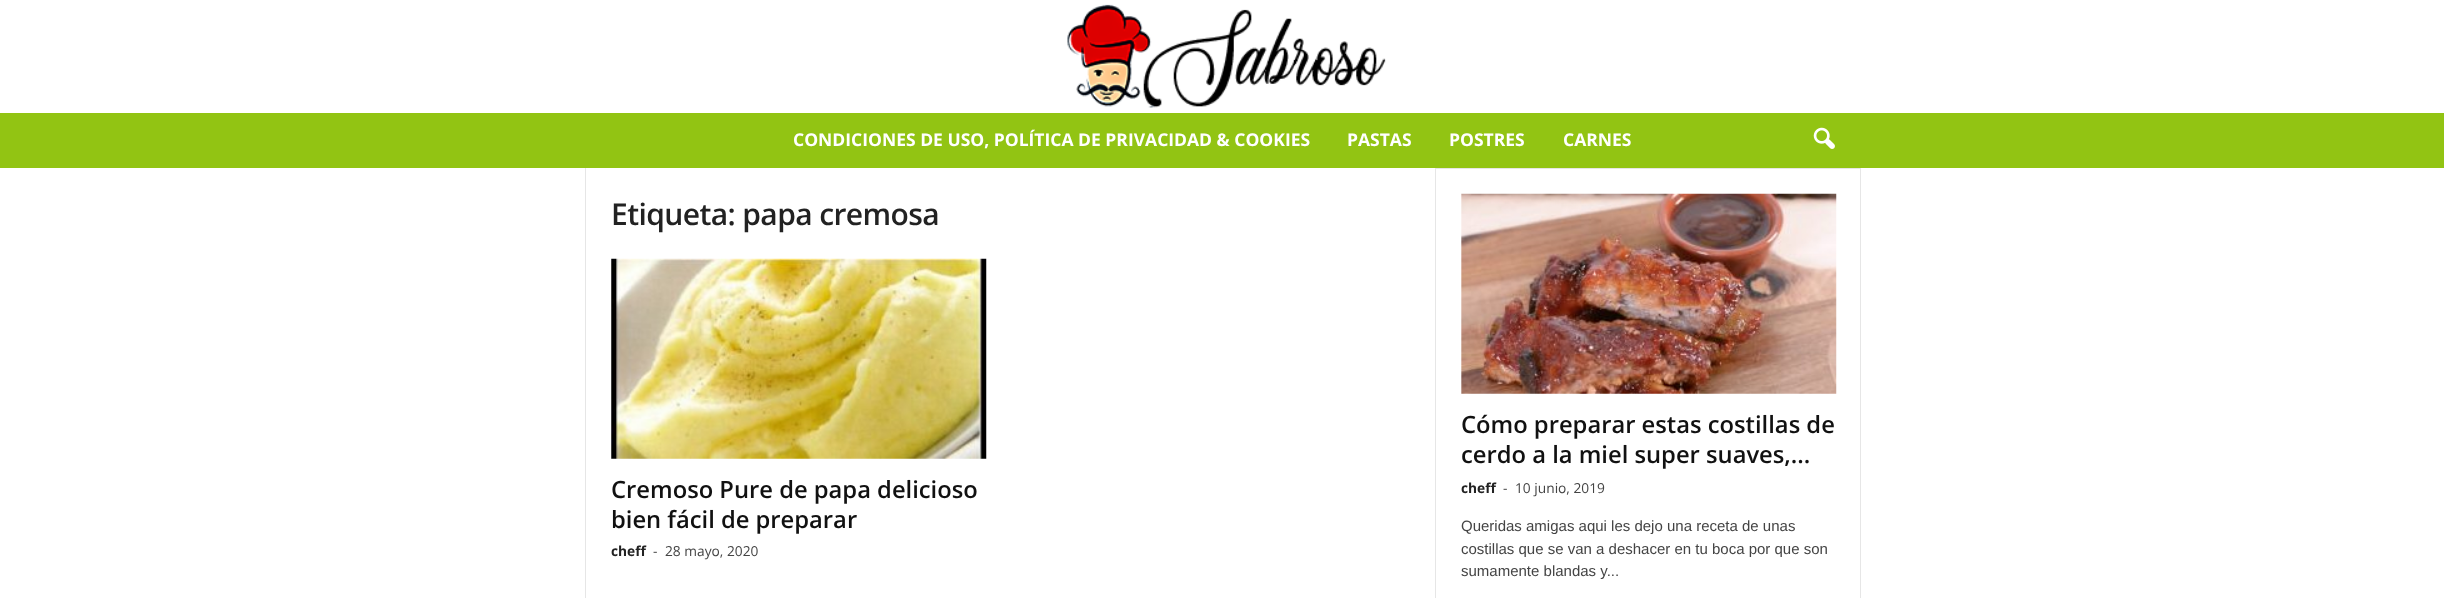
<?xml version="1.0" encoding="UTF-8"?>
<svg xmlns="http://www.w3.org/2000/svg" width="2444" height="598">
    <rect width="100%" height="100%" fill="#FFFFFF"/>
    <image x="1067" y="4" width="319" height="104" href="img_01.png"/>
    <rect x="0" y="113" width="2444" height="55" fill="#92C413"/>
    <text x="793" y="146" font-family="Open Sans" font-size="17.5" font-weight="700" fill="#FFFFFF">CONDICIONES DE USO, POLÍTICA DE PRIVACIDAD &amp; COOKIES</text>
    <text x="1347" y="146" font-family="Open Sans" font-size="17.5" font-weight="700" fill="#FFFFFF">PASTAS</text>
    <text x="1449" y="146" font-family="Open Sans" font-size="17.5" font-weight="700" fill="#FFFFFF">POSTRES</text>
    <text x="1563" y="146" font-family="Open Sans" font-size="17.5" font-weight="700" fill="#FFFFFF">CARNES</text>
    <image x="1813" y="127" width="22" height="22" href="img_02.png"/>
    <rect x="585" y="168" width="1" height="430" fill="#E6E6E6"/>
    <text x="611" y="225" font-family="Open Sans" font-size="30" font-weight="600" letter-spacing="-0.6" fill="#222222">Etiqueta: papa cremosa</text>
    <image x="611" y="258" width="376" height="201" href="img_03.png"/>
    <text font-family="Open Sans" font-size="23.75" font-weight="600" fill="#111111">
        <tspan x="611" y="498">Cremoso Pure de papa delicioso</tspan>
        <tspan x="611" y="528">bien fácil de preparar</tspan>
    </text>
    <text x="611" y="556" font-family="Open Sans" font-size="13.75" font-weight="700" fill="#222222">cheff</text>
    <text x="653" y="556" font-family="Open Sans" font-size="13.75" fill="#444444">-</text>
    <text x="665" y="556" font-family="Open Sans" font-size="13.75" fill="#444444">28 mayo, 2020</text>
    <rect x="1435" y="168" width="1" height="430" fill="#E6E6E6"/>
    <rect x="1436" y="168" width="424" height="1" fill="#E6E6E6"/>
    <image x="1461" y="193" width="376" height="201" href="img_04.png"/>
    <text font-family="Open Sans" font-size="23.75" font-weight="600" fill="#111111">
        <tspan x="1461" y="433">Cómo preparar estas costillas de</tspan>
        <tspan x="1461" y="463">cerdo a la miel super suaves,...</tspan>
    </text>
    <text x="1461" y="493" font-family="Open Sans" font-size="13.75" font-weight="700" fill="#222222">cheff</text>
    <text x="1503" y="493" font-family="Open Sans" font-size="13.75" fill="#444444">-</text>
    <text x="1515" y="493" font-family="Open Sans" font-size="13.75" fill="#444444">10 junio, 2019</text>
    <text font-family="Liberation Sans" font-size="15" fill="#444444">
        <tspan x="1461" y="531">Queridas amigas aqui les dejo una receta de unas</tspan>
        <tspan x="1461" y="554">costillas que se van a deshacer en tu boca por que son</tspan>
        <tspan x="1461" y="576">sumamente blandas y...</tspan>
    </text>
    <rect x="1860" y="168" width="1" height="430" fill="#E6E6E6"/>
</svg>
